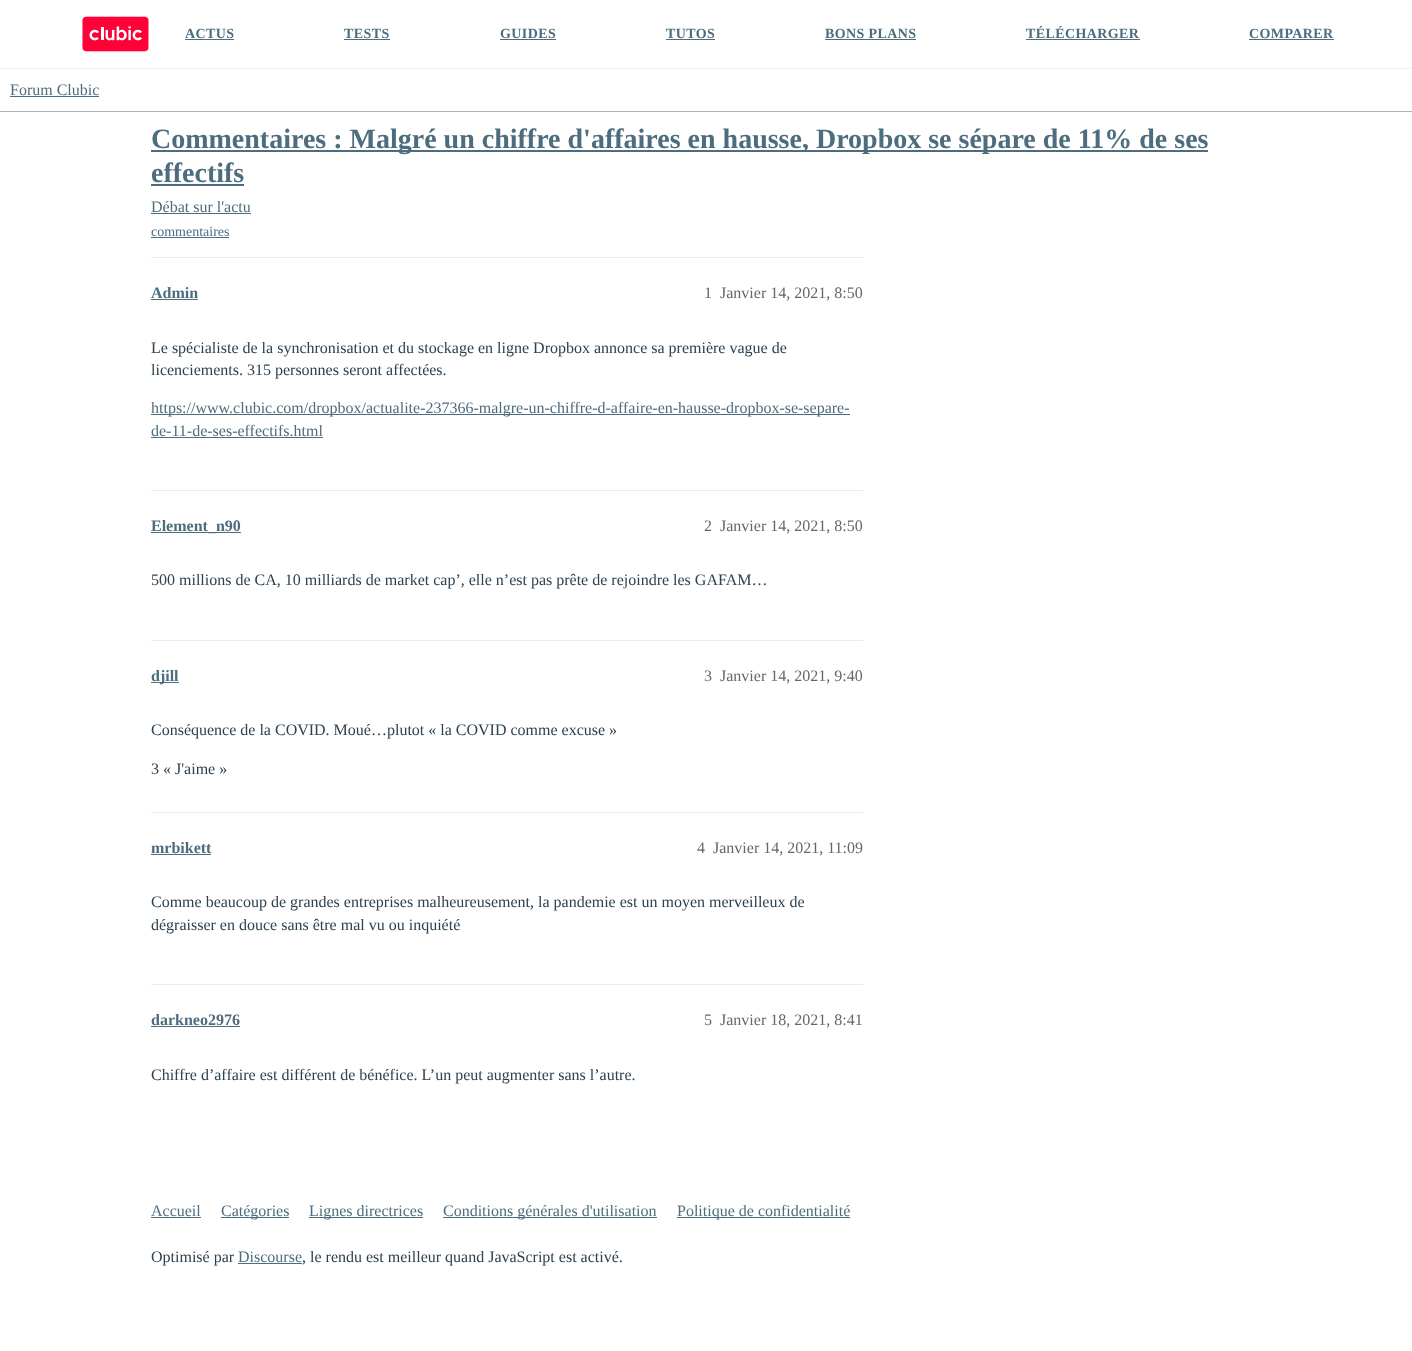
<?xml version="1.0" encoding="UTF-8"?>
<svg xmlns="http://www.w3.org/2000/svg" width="1412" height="1351">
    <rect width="100%" height="100%" fill="#FFFFFF"/>
    <rect x="0" y="68" width="1412" height="1" fill="#EDF0F4"/>
    <image x="82" y="16" width="67" height="36" href="img_01.png"/>
    <text x="185" y="38" font-family="Liberation Serif" font-size="14" font-weight="700" letter-spacing="0.4" fill="#4D6D7E">ACTUS</text>
    <rect x="185" y="39" width="49" height="1" fill="#4D6D7E"/>
    <text x="344" y="38" font-family="Liberation Serif" font-size="14" font-weight="700" letter-spacing="0.4" fill="#4D6D7E">TESTS</text>
    <rect x="344" y="39" width="46" height="1" fill="#4D6D7E"/>
    <text x="500" y="38" font-family="Liberation Serif" font-size="14" font-weight="700" letter-spacing="0.4" fill="#4D6D7E">GUIDES</text>
    <rect x="500" y="39" width="56" height="1" fill="#4D6D7E"/>
    <text x="666" y="38" font-family="Liberation Serif" font-size="14" font-weight="700" letter-spacing="0.4" fill="#4D6D7E">TUTOS</text>
    <rect x="666" y="39" width="49" height="1" fill="#4D6D7E"/>
    <text x="825" y="38" font-family="Liberation Serif" font-size="14" font-weight="700" letter-spacing="0.4" fill="#4D6D7E">BONS PLANS</text>
    <rect x="825" y="39" width="91" height="1" fill="#4D6D7E"/>
    <text x="1026" y="38" font-family="Liberation Serif" font-size="14" font-weight="700" letter-spacing="0.4" fill="#4D6D7E">TÉLÉCHARGER</text>
    <rect x="1026" y="39" width="114" height="1" fill="#4D6D7E"/>
    <text x="1249" y="38" font-family="Liberation Serif" font-size="14" font-weight="700" letter-spacing="0.4" fill="#4D6D7E">COMPARER</text>
    <rect x="1249" y="39" width="85" height="1" fill="#4D6D7E"/>
    <rect x="0" y="111" width="1412" height="1" fill="#AEB2B5"/>
    <text x="10" y="95" font-family="Liberation Serif" font-size="16" fill="#4D6D7E">Forum Clubic</text>
    <rect x="10" y="96" width="89" height="1" fill="#4D6D7E"/>
    <rect x="151" y="150" width="1057" height="2" fill="#4D6D7E"/>
    <text font-family="Liberation Serif" font-size="28" font-weight="700" fill="#4D6D7E">
        <tspan x="151" y="148">Commentaires : Malgré un chiffre d'affaires en hausse, Dropbox se sépare de 11% de ses</tspan>
        <tspan x="151" y="182">effectifs</tspan>
    </text>
    <rect x="151" y="184" width="93" height="2" fill="#4D6D7E"/>
    <text x="151" y="212" font-family="Liberation Serif" font-size="16" fill="#4D6D7E">Débat sur l'actu</text>
    <rect x="151" y="213" width="100" height="1" fill="#4D6D7E"/>
    <text x="151" y="236" font-family="Liberation Serif" font-size="14" fill="#4D6D7E">commentaires</text>
    <rect x="151" y="237" width="78" height="1" fill="#4D6D7E"/>
    <rect x="151" y="257" width="712" height="1" fill="#E6EDF1"/>
    <text x="151" y="298" font-family="Liberation Serif" font-size="16" font-weight="700" fill="#4D6D7E">Admin</text>
    <rect x="151" y="299" width="47" height="1" fill="#4D6D7E"/>
    <text x="704" y="298" font-family="Liberation Serif" font-size="16" fill="#666666">1</text>
    <text x="720" y="298" font-family="Liberation Serif" font-size="16" fill="#666666">Janvier 14, 2021, 8:50</text>
    <text font-family="Liberation Serif" font-size="16" fill="#2C4250">
        <tspan x="151" y="353">Le spécialiste de la synchronisation et du stockage en ligne Dropbox annonce sa première vague de</tspan>
        <tspan x="151" y="375">licenciements. 315 personnes seront affectées.</tspan>
    </text>
    <rect x="151" y="414" width="699" height="1" fill="#4D6D7E"/>
    <text font-family="Liberation Serif" font-size="16" fill="#4D6D7E">
        <tspan x="151" y="413">https://www.clubic.com/dropbox/actualite-237366-malgre-un-chiffre-d-affaire-en-hausse-dropbox-se-separe-</tspan>
        <tspan x="151" y="436">de-11-de-ses-effectifs.html</tspan>
    </text>
    <rect x="151" y="437" width="172" height="1" fill="#4D6D7E"/>
    <rect x="151" y="490" width="712" height="1" fill="#E6EDF1"/>
    <rect x="151" y="532" width="90" height="1" fill="#4D6D7E"/>
    <text x="151" y="531" font-family="Liberation Serif" font-size="16" font-weight="700" fill="#4D6D7E">Element_n90</text>
    <text x="704" y="531" font-family="Liberation Serif" font-size="16" fill="#666666">2</text>
    <text x="720" y="531" font-family="Liberation Serif" font-size="16" fill="#666666">Janvier 14, 2021, 8:50</text>
    <text x="151" y="585" font-family="Liberation Serif" font-size="16" fill="#2C4250">500 millions de CA, 10 milliards de market cap’, elle n’est pas prête de rejoindre les GAFAM…</text>
    <rect x="151" y="640" width="712" height="1" fill="#E6EDF1"/>
    <rect x="151" y="682" width="28" height="1" fill="#4D6D7E"/>
    <text x="151" y="681" font-family="Liberation Serif" font-size="16" font-weight="700" fill="#4D6D7E">djill</text>
    <text x="704" y="681" font-family="Liberation Serif" font-size="16" fill="#666666">3</text>
    <text x="720" y="681" font-family="Liberation Serif" font-size="16" fill="#666666">Janvier 14, 2021, 9:40</text>
    <text x="151" y="735" font-family="Liberation Serif" font-size="16" fill="#2C4250">Conséquence de la COVID. Moué…plutot « la COVID comme excuse »</text>
    <text x="151" y="774" font-family="Liberation Serif" font-size="16" fill="#2C4250">3 « J'aime »</text>
    <rect x="151" y="812" width="712" height="1" fill="#E6EDF1"/>
    <text x="151" y="853" font-family="Liberation Serif" font-size="16" font-weight="700" fill="#4D6D7E">mrbikett</text>
    <rect x="151" y="854" width="60" height="1" fill="#4D6D7E"/>
    <text x="697" y="853" font-family="Liberation Serif" font-size="16" fill="#666666">4</text>
    <text x="713" y="853" font-family="Liberation Serif" font-size="16" fill="#666666">Janvier 14, 2021, 11:09</text>
    <text font-family="Liberation Serif" font-size="16" fill="#2C4250">
        <tspan x="151" y="907">Comme beaucoup de grandes entreprises malheureusement, la pandemie est un moyen merveilleux de</tspan>
        <tspan x="151" y="930">dégraisser en douce sans être mal vu ou inquiété</tspan>
    </text>
    <rect x="151" y="984" width="712" height="1" fill="#E6EDF1"/>
    <text x="151" y="1025" font-family="Liberation Serif" font-size="16" font-weight="700" fill="#4D6D7E">darkneo2976</text>
    <rect x="151" y="1026" width="89" height="1" fill="#4D6D7E"/>
    <text x="704" y="1025" font-family="Liberation Serif" font-size="16" fill="#666666">5</text>
    <text x="720" y="1025" font-family="Liberation Serif" font-size="16" fill="#666666">Janvier 18, 2021, 8:41</text>
    <text x="151" y="1080" font-family="Liberation Serif" font-size="16" fill="#2C4250">Chiffre d’affaire est différent de bénéfice. L’un peut augmenter sans l’autre.</text>
    <text x="151" y="1216" font-family="Liberation Serif" font-size="16" fill="#4D6D7E">Accueil</text>
    <rect x="151" y="1217" width="50" height="1" fill="#4D6D7E"/>
    <rect x="221" y="1217" width="68" height="1" fill="#4D6D7E"/>
    <text x="221" y="1216" font-family="Liberation Serif" font-size="16" fill="#4D6D7E">Catégories</text>
    <rect x="309" y="1217" width="114" height="1" fill="#4D6D7E"/>
    <text x="309" y="1216" font-family="Liberation Serif" font-size="16" fill="#4D6D7E">Lignes directrices</text>
    <rect x="443" y="1217" width="214" height="1" fill="#4D6D7E"/>
    <text x="443" y="1216" font-family="Liberation Serif" font-size="16" fill="#4D6D7E">Conditions générales d'utilisation</text>
    <rect x="677" y="1217" width="173" height="1" fill="#4D6D7E"/>
    <text x="677" y="1216" font-family="Liberation Serif" font-size="16" fill="#4D6D7E">Politique de confidentialité</text>
    <text x="151" y="1262" font-family="Liberation Serif" font-size="16" fill="#2C4250">Optimisé par</text>
    <text x="238" y="1262" font-family="Liberation Serif" font-size="16" fill="#4D6D7E">Discourse</text>
    <rect x="238" y="1263" width="64" height="1" fill="#4D6D7E"/>
    <text x="302" y="1262" font-family="Liberation Serif" font-size="16" fill="#2C4250">, le rendu est meilleur quand JavaScript est activé.</text>
</svg>
